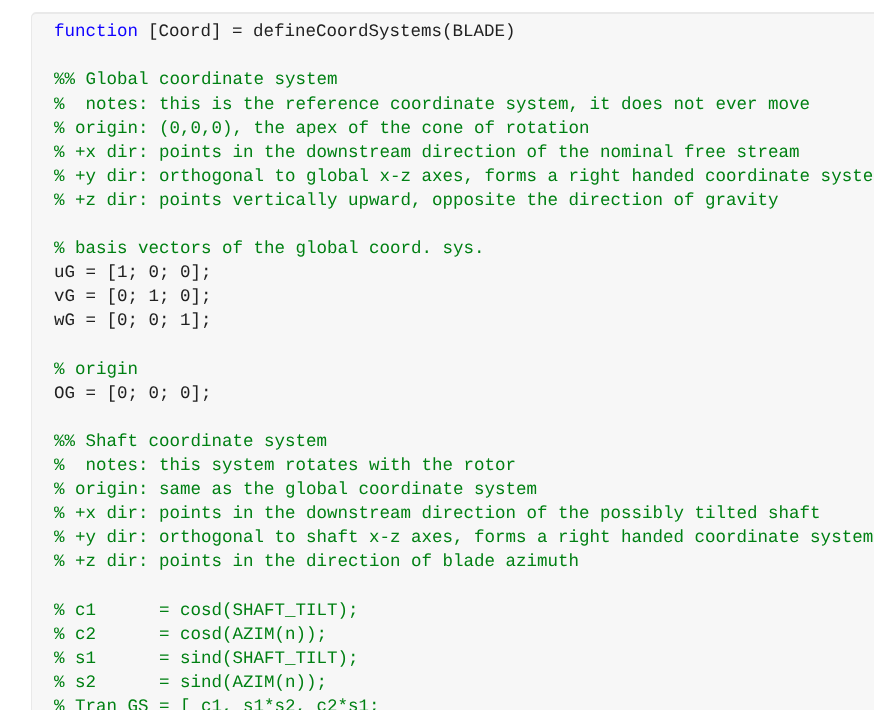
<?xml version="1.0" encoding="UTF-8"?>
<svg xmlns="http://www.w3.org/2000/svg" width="874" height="710">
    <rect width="100%" height="100%" fill="#FFFFFF"/>
    <path d="M 36 13 H 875 V 710 H 31 V 18 C 31 15 33 13 36 13 Z" fill="#F7F7F7"/>
    <path d="M 36 12 H 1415 C 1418 12 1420 15 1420 18 V 44 H 31 V 18 C 31 15 33 12 36 12 Z M 36 14 H 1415 C 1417 14 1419 15 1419 18 V 44 H 32 V 18 C 32 15 34 14 36 14 Z" fill="#E9E9E9" fill-rule="evenodd"/>
    <text x="54" y="36" font-family="Liberation Mono" font-size="17.5" fill="#0E00FF">function</text>
    <text x="148" y="36" font-family="Liberation Mono" font-size="17.5" fill="#212121">[Coord] = defineCoordSystems(BLADE)</text>
    <rect x="31" y="44" width="1" height="666" fill="#E9E9E9"/>
    <text font-family="Liberation Mono" font-size="17.5" fill="#008013" xml:space="preserve"><tspan x="54" y="84">%% Global coordinate system</tspan><tspan x="54" y="109">%  notes: this is the reference coordinate system, it does not ever move</tspan><tspan x="54" y="133">% origin: (0,0,0), the apex of the cone of rotation</tspan><tspan x="54" y="157">% +x dir: points in the downstream direction of the nominal free stream</tspan><tspan x="54" y="181">% +y dir: orthogonal to global x-z axes, forms a right handed coordinate syste</tspan><tspan x="54" y="205">% +z dir: points vertically upward, opposite the direction of gravity</tspan></text>
    <text x="54" y="253" font-family="Liberation Mono" font-size="17.5" fill="#008013">% basis vectors of the global coord. sys.</text>
    <text font-family="Liberation Mono" font-size="17.5" fill="#212121">
        <tspan x="54" y="277">uG = [1; 0; 0];</tspan>
        <tspan x="54" y="301">vG = [0; 1; 0];</tspan>
        <tspan x="54" y="325">wG = [0; 0; 1];</tspan>
    </text>
    <text x="54" y="374" font-family="Liberation Mono" font-size="17.5" fill="#008013">% origin</text>
    <text x="54" y="398" font-family="Liberation Mono" font-size="17.5" fill="#212121">OG = [0; 0; 0];</text>
    <text font-family="Liberation Mono" font-size="17.5" fill="#008013" xml:space="preserve"><tspan x="54" y="446">%% Shaft coordinate system</tspan><tspan x="54" y="470">%  notes: this system rotates with the rotor</tspan><tspan x="54" y="494">% origin: same as the global coordinate system</tspan><tspan x="54" y="518">% +x dir: points in the downstream direction of the possibly tilted shaft</tspan><tspan x="54" y="542">% +y dir: orthogonal to shaft x-z axes, forms a right handed coordinate system</tspan><tspan x="54" y="566">% +z dir: points in the direction of blade azimuth</tspan></text>
    <text font-family="Liberation Mono" font-size="17.5" fill="#008013" xml:space="preserve"><tspan x="54" y="615">% c1      = cosd(SHAFT_TILT);</tspan><tspan x="54" y="639">% c2      = cosd(AZIM(n));</tspan><tspan x="54" y="663">% s1      = sind(SHAFT_TILT);</tspan><tspan x="54" y="687">% s2      = sind(AZIM(n));</tspan><tspan x="54" y="711">% Tran_GS = [ c1, s1*s2, c2*s1;</tspan></text>
</svg>
